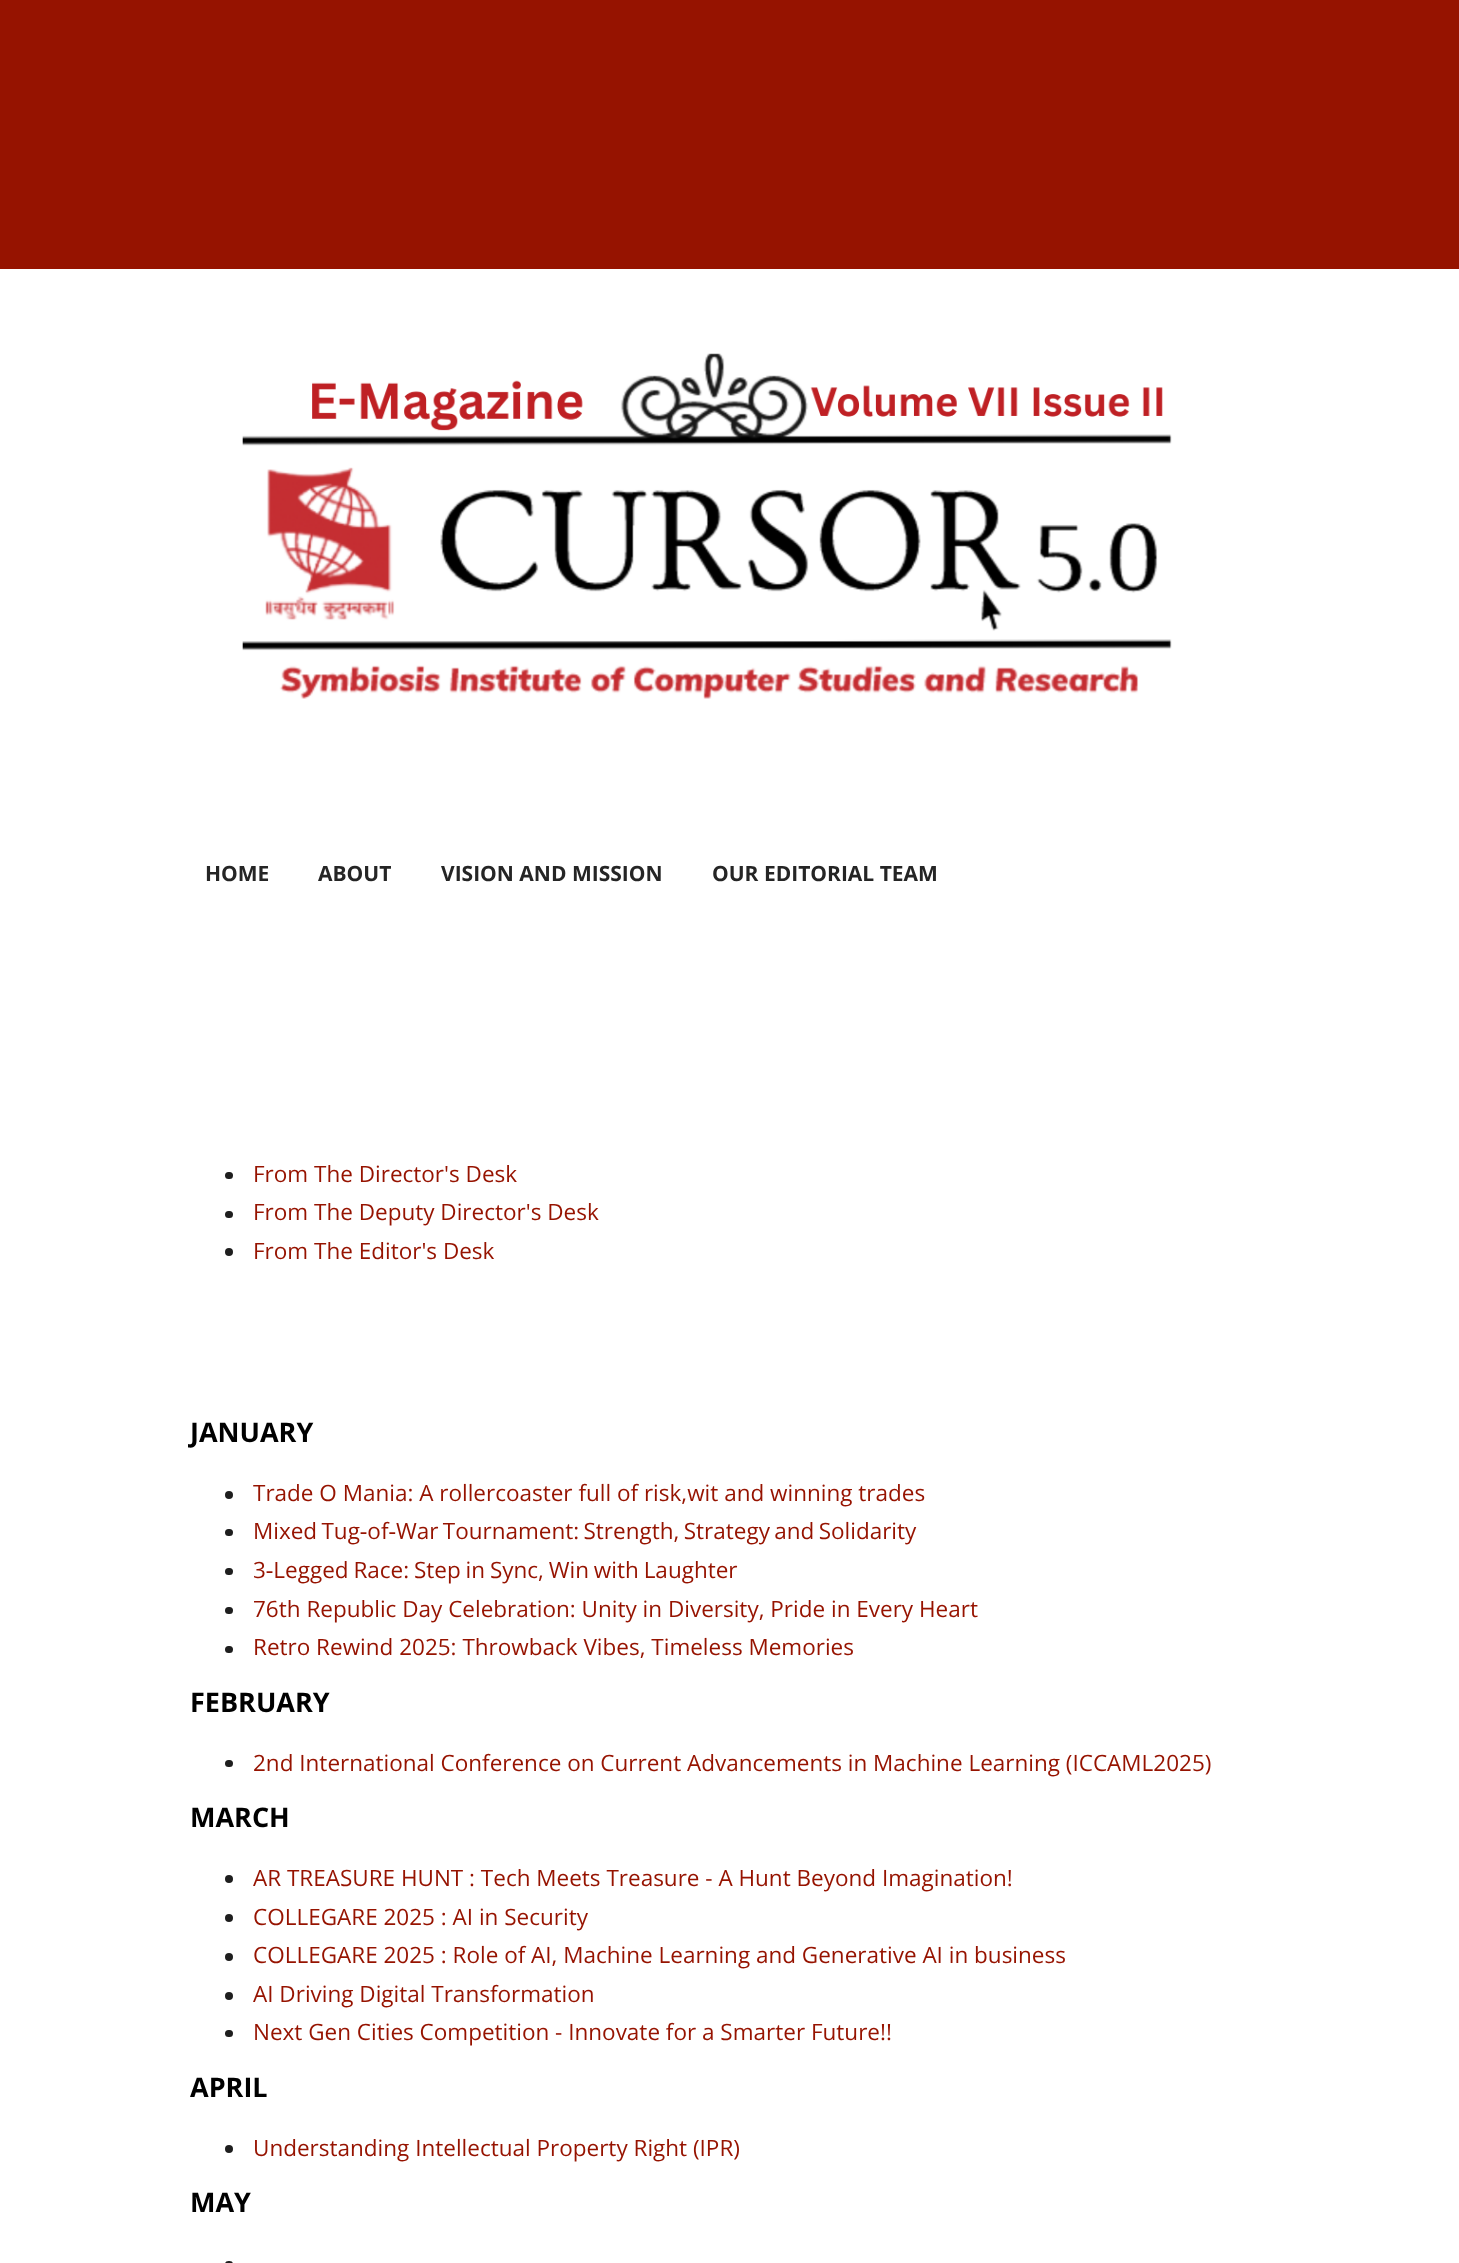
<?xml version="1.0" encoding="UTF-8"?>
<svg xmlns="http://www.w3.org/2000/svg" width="1459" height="2263">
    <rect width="100%" height="100%" fill="#FFFFFF"/>
    <rect x="0" y="0" width="1459" height="269" fill="#961300"/>
    <image x="242" y="353" width="930" height="346" href="img_01.png"/>
    <text x="205" y="881" font-family="Open Sans" font-size="21" font-weight="700" fill="#252525">HOME</text>
    <text x="318" y="881" font-family="Open Sans" font-size="21" font-weight="700" fill="#252525">ABOUT</text>
    <text x="441" y="881" font-family="Open Sans" font-size="21" font-weight="700" fill="#252525">VISION AND MISSION</text>
    <text x="712" y="881" font-family="Open Sans" font-size="21" font-weight="700" fill="#252525">OUR EDITORIAL TEAM</text>
    <rect x="225" y="1172" width="8" height="7" rx="3.5" fill="#1E1E1E"/>
    <text x="253" y="1182" font-family="Open Sans" font-size="22.5" fill="#961300">From The Director's Desk</text>
    <rect x="225" y="1211" width="8" height="7" rx="3.5" fill="#1E1E1E"/>
    <text x="253" y="1220" font-family="Open Sans" font-size="22.5" fill="#961300">From The Deputy Director's Desk</text>
    <circle cx="229" cy="1252" r="4" fill="#1E1E1E"/>
    <text x="253" y="1259" font-family="Open Sans" font-size="22.5" fill="#961300">From The Editor's Desk</text>
    <text x="190" y="1442" font-family="Open Sans" font-size="27" font-weight="700" fill="#000000">JANUARY</text>
    <circle cx="229" cy="1495" r="4" fill="#1E1E1E"/>
    <text x="253" y="1501" font-family="Open Sans" font-size="22.5" fill="#961300">Trade O Mania: A rollercoaster full of risk,wit and winning trades</text>
    <rect x="225" y="1529" width="8" height="7" rx="3.5" fill="#1E1E1E"/>
    <text x="253" y="1539" word-spacing="-1.5" font-family="Open Sans" font-size="22.5" fill="#961300">Mixed Tug‑of‑War Tournament: Strength, Strategy and Solidarity</text>
    <rect x="225" y="1568" width="8" height="7" rx="3.5" fill="#1E1E1E"/>
    <text x="253" y="1578" word-spacing="-1" font-family="Open Sans" font-size="22.5" fill="#961300">3‑Legged Race: Step in Sync, Win with Laughter</text>
    <rect x="225" y="1607" width="8" height="7" rx="3.5" fill="#1E1E1E"/>
    <text x="253" y="1617" font-family="Open Sans" font-size="22.5" fill="#961300">76th Republic Day Celebration: Unity in Diversity, Pride in Every Heart</text>
    <rect x="225" y="1646" width="8" height="7" rx="3.5" fill="#1E1E1E"/>
    <text x="253" y="1655" font-family="Open Sans" font-size="22.5" fill="#961300">Retro Rewind 2025: Throwback Vibes, Timeless Memories</text>
    <text x="190" y="1712" font-family="Open Sans" font-size="27" font-weight="700" fill="#000000">FEBRUARY</text>
    <rect x="225" y="1760" width="8" height="7" rx="3.5" fill="#1E1E1E"/>
    <text x="253" y="1771" font-family="Open Sans" font-size="22.5" fill="#961300">2nd International Conference on Current Advancements in Machine Learning (ICCAML2025)</text>
    <text x="190" y="1827" font-family="Open Sans" font-size="27" font-weight="700" fill="#000000">MARCH</text>
    <circle cx="229" cy="1879" r="4" fill="#1E1E1E"/>
    <text x="253" y="1886" font-family="Open Sans" font-size="22.5" fill="#961300">AR TREASURE HUNT : Tech Meets Treasure - A Hunt Beyond Imagination!</text>
    <circle cx="229" cy="1918" r="4" fill="#1E1E1E"/>
    <text x="253" y="1925" font-family="Open Sans" font-size="22.5" fill="#961300">COLLEGARE 2025 : AI in Security</text>
    <circle cx="229" cy="1957" r="4" fill="#1E1E1E"/>
    <text x="253" y="1963" font-family="Open Sans" font-size="22.5" fill="#961300">COLLEGARE 2025 : Role of AI, Machine Learning and Generative AI in business</text>
    <circle cx="229" cy="1996" r="4" fill="#1E1E1E"/>
    <text x="253" y="2002" font-family="Open Sans" font-size="22.5" fill="#961300">AI Driving Digital Transformation</text>
    <rect x="225" y="2030" width="8" height="7" rx="3.5" fill="#1E1E1E"/>
    <text x="253" y="2040" font-family="Open Sans" font-size="22.5" fill="#961300">Next Gen Cities Competition - Innovate for a Smarter Future!!</text>
    <text x="190" y="2097" font-family="Open Sans" font-size="27" font-weight="700" fill="#000000">APRIL</text>
    <circle cx="229" cy="2149" r="4" fill="#1E1E1E"/>
    <text x="253" y="2156" font-family="Open Sans" font-size="22.5" fill="#961300">Understanding Intellectual Property Right (IPR)</text>
    <text x="190" y="2212" font-family="Open Sans" font-size="27" font-weight="700" fill="#000000">MAY</text>
    <rect x="225" y="2261" width="8" height="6" rx="3.5" fill="#1E1E1E"/>
</svg>
